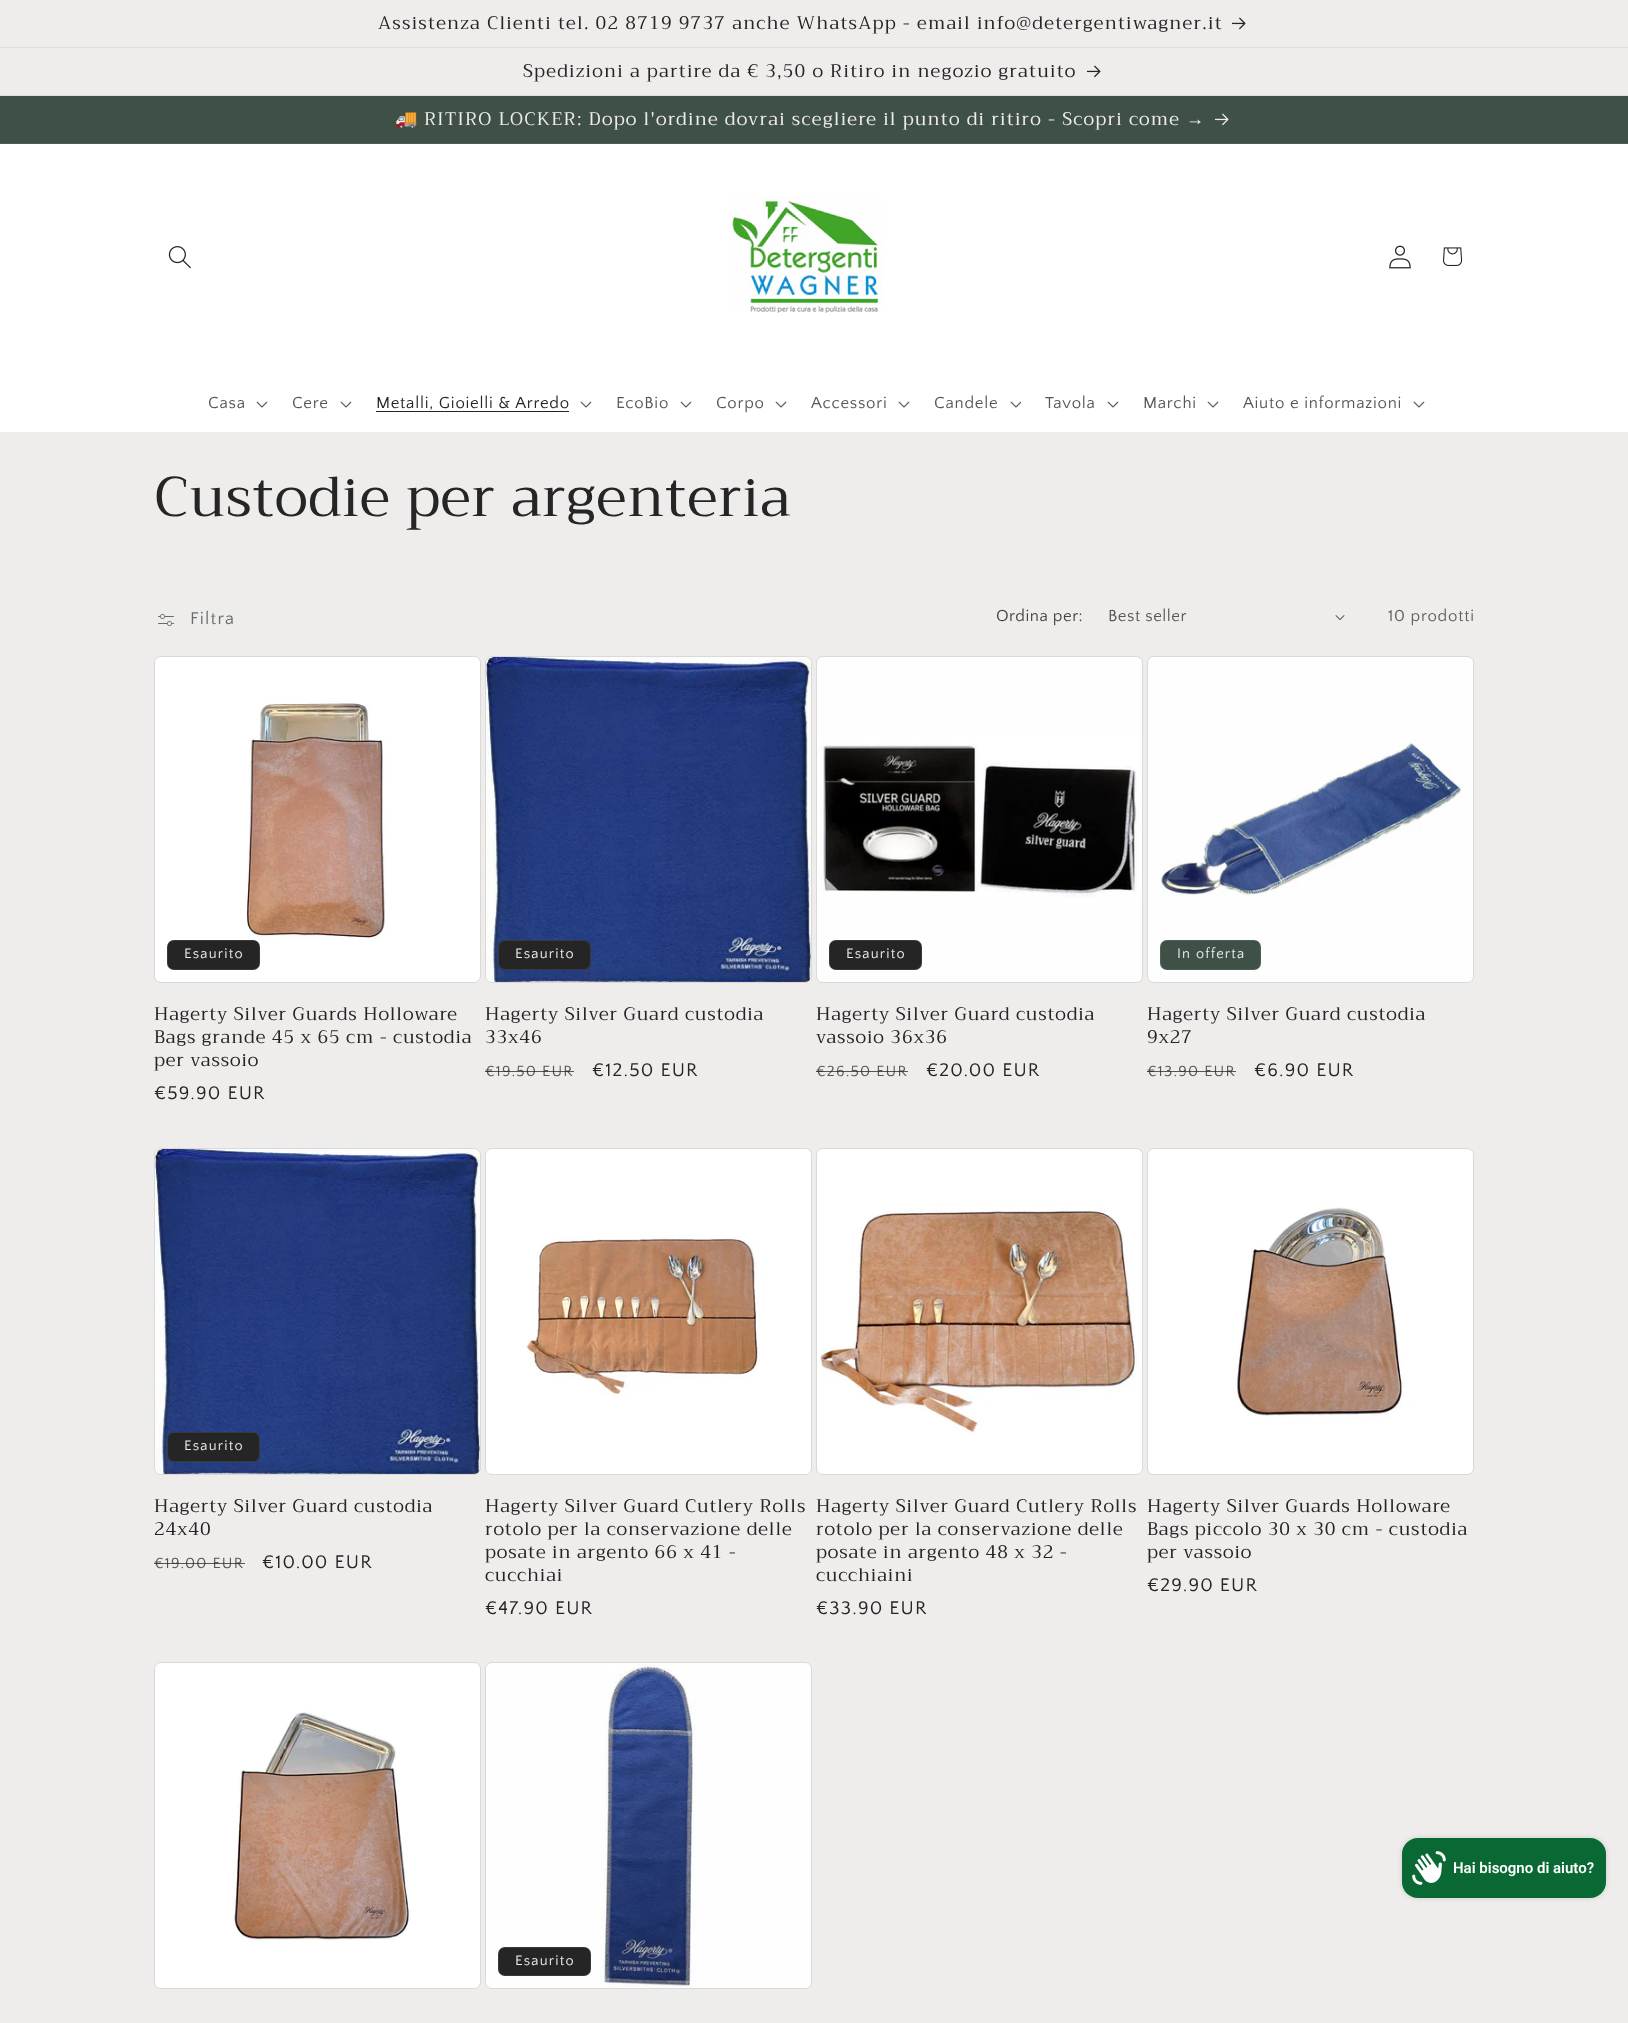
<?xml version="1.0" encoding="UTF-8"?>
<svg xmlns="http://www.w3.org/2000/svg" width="1628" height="2023">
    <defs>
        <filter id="blur1" x="-50%" y="-200%" width="200%" height="500%"><feGaussianBlur stdDeviation="2.5"/></filter>
    </defs>
    <rect width="100%" height="100%" fill="#EFECEC"/>
    <rect x="0" y="47" width="1628" height="1" fill="#DFDCDC"/>
    <text x="378" y="29" font-family="Trirong" font-size="18.2" letter-spacing="1.2" fill="#252525">Assistenza Clienti tel. 02 8719 9737 anche WhatsApp - email info@detergentiwagner.it</text>
    <image x="1232" y="17" width="14" height="13" href="img_01.png"/>
    <rect x="0" y="95" width="1628" height="1" fill="#DFDCDC"/>
    <text x="523" y="77" font-family="Trirong" font-size="18.2" letter-spacing="1.2" fill="#252525">Spedizioni a partire da € 3,50 o Ritiro in negozio gratuito</text>
    <image x="1087" y="65" width="14" height="13" href="img_01.png"/>
    <rect x="0" y="96" width="1628" height="47" fill="#3F5147"/>
    <rect x="0" y="143" width="1628" height="1" fill="#4D5D54"/>
    <text x="395" y="125" font-family="Noto Color Emoji" font-size="18.2" letter-spacing="1.2" fill="#EFECEC">🚚</text>
    <text x="424" y="125" font-family="Trirong" font-size="18.2" letter-spacing="1.2" fill="#EFECEC">RITIRO LOCKER: Dopo l'ordine dovrai scegliere il punto di ritiro - Scopri come</text>
    <text x="1186" y="125" font-family="Liberation Serif" font-size="18.2" letter-spacing="1.2" fill="#EFECEC">→</text>
    <image x="1215" y="113" width="14" height="12" href="img_02.png"/>
    <rect x="0" y="144" width="1628" height="288" fill="#FFFFFF"/>
    <image x="168" y="246" width="23" height="23" href="img_03.png"/>
    <image x="730" y="197" width="153" height="116" href="img_04.png"/>
    <image x="1389" y="245" width="22" height="24" href="img_05.png"/>
    <image x="1443" y="247" width="20" height="19" href="img_06.png"/>
    <text x="208" y="408" font-family="Quattrocento Sans" font-size="16.75" letter-spacing="0.75" fill="#585757">Casa</text>
    <image x="256" y="401" width="12" height="7" href="img_07.png"/>
    <text x="292" y="408" font-family="Quattrocento Sans" font-size="16.75" letter-spacing="0.75" fill="#585757">Cere</text>
    <image x="340" y="401" width="12" height="7" href="img_07.png"/>
    <text x="376" y="408" font-family="Quattrocento Sans" font-size="16.75" letter-spacing="0.75" fill="#252525">Metalli, Gioielli &amp; Arredo</text>
    <rect x="376" y="411" width="193" height="1" fill="#252525"/>
    <image x="580" y="401" width="12" height="7" href="img_07.png"/>
    <text x="616" y="408" font-family="Quattrocento Sans" font-size="16.75" letter-spacing="0.75" fill="#585757">EcoBio</text>
    <image x="680" y="401" width="12" height="7" href="img_07.png"/>
    <text x="716" y="408" font-family="Quattrocento Sans" font-size="16.75" letter-spacing="0.75" fill="#585757">Corpo</text>
    <image x="775" y="401" width="12" height="7" href="img_07.png"/>
    <text x="811" y="408" font-family="Quattrocento Sans" font-size="16.75" letter-spacing="0.75" fill="#585757">Accessori</text>
    <image x="898" y="401" width="12" height="7" href="img_07.png"/>
    <text x="934" y="408" font-family="Quattrocento Sans" font-size="16.75" letter-spacing="0.75" fill="#585757">Candele</text>
    <image x="1010" y="401" width="11" height="7" href="img_08.png"/>
    <text x="1045" y="408" font-family="Quattrocento Sans" font-size="16.75" letter-spacing="0.75" fill="#585757">Tavola</text>
    <image x="1107" y="401" width="12" height="7" href="img_07.png"/>
    <text x="1143" y="408" font-family="Quattrocento Sans" font-size="16.75" letter-spacing="0.75" fill="#585757">Marchi</text>
    <image x="1207" y="401" width="12" height="7" href="img_07.png"/>
    <text x="1243" y="408" font-family="Quattrocento Sans" font-size="16.75" letter-spacing="0.75" fill="#585757">Aiuto e informazioni</text>
    <image x="1413" y="401" width="12" height="7" href="img_07.png"/>
    <text x="154" y="516" font-family="Trirong" font-size="56" letter-spacing="0.85" fill="#252525">Custodie per argenteria</text>
    <image x="158" y="614" width="16" height="12" href="img_09.png"/>
    <text x="190" y="624" font-family="Quattrocento Sans" font-size="18" letter-spacing="1.2" fill="#686D6C">Filtra</text>
    <text x="996" y="621" font-family="Quattrocento Sans" font-size="16.75" letter-spacing="0.5" fill="#434343">Ordina per:</text>
    <text x="1108" y="621" font-family="Quattrocento Sans" font-size="16.75" letter-spacing="0.5" fill="#585757">Best seller</text>
    <image x="1335" y="615" width="10" height="5" href="img_10.png"/>
    <text x="1388" y="621" font-family="Quattrocento Sans" font-size="16.75" letter-spacing="0.75" fill="#626161">10 prodotti</text>
    <rect x="154.5" y="656.5" width="326" height="326" rx="6.5" fill="none" stroke="#DBD8D8"/>
    <image x="155" y="657" width="325" height="325" href="img_11.png"/>
    <rect x="167" y="940" width="93" height="30" rx="7" fill="#252525"/>
    <rect x="167.5" y="940.5" width="92" height="29" rx="6.5" fill="none" stroke="#EFECEC" stroke-opacity="0.1"/>
    <text x="184" y="958" font-family="Quattrocento Sans" font-size="14.5" letter-spacing="1.2" fill="#EFECEC">Esaurito</text>
    <text font-family="Trirong" font-size="18.2" letter-spacing="0.85" fill="#252525">
        <tspan x="154" y="1020">Hagerty Silver Guards Holloware</tspan>
        <tspan x="154" y="1043">Bags grande 45 x 65 cm - custodia</tspan>
        <tspan x="154" y="1066">per vassoio</tspan>
    </text>
    <text x="154" y="1099" font-family="Quattrocento Sans" font-size="19.25" letter-spacing="1.2" fill="#252525">€59.90 EUR</text>
    <rect x="485.5" y="656.5" width="326" height="326" rx="6.5" fill="none" stroke="#DBD8D8"/>
    <image x="486" y="657" width="325" height="325" href="img_12.png"/>
    <rect x="498" y="940" width="93" height="30" rx="7" fill="#252525"/>
    <rect x="498.5" y="940.5" width="92" height="29" rx="6.5" fill="none" stroke="#EFECEC" stroke-opacity="0.1"/>
    <text x="515" y="958" font-family="Quattrocento Sans" font-size="14.5" letter-spacing="1.2" fill="#EFECEC">Esaurito</text>
    <text font-family="Trirong" font-size="18.2" letter-spacing="0.85" fill="#252525">
        <tspan x="485" y="1020">Hagerty Silver Guard custodia</tspan>
        <tspan x="485" y="1043">33x46</tspan>
    </text>
    <text x="485" y="1076" font-family="Quattrocento Sans" font-size="15.5" letter-spacing="1.2" fill="#585757">€19.50 EUR</text>
    <rect x="485" y="1071" width="89" height="1" fill="#252525" fill-opacity="0.75"/>
    <text x="592" y="1076" font-family="Quattrocento Sans" font-size="19.25" letter-spacing="1.2" fill="#252525">€12.50 EUR</text>
    <rect x="816.5" y="656.5" width="326" height="326" rx="6.5" fill="none" stroke="#DBD8D8"/>
    <image x="817" y="657" width="325" height="325" href="img_13.png"/>
    <rect x="829" y="940" width="93" height="30" rx="7" fill="#252525"/>
    <rect x="829.5" y="940.5" width="92" height="29" rx="6.5" fill="none" stroke="#EFECEC" stroke-opacity="0.1"/>
    <text x="846" y="958" font-family="Quattrocento Sans" font-size="14.5" letter-spacing="1.2" fill="#EFECEC">Esaurito</text>
    <text font-family="Trirong" font-size="18.2" letter-spacing="0.85" fill="#252525">
        <tspan x="816" y="1020">Hagerty Silver Guard custodia</tspan>
        <tspan x="816" y="1043">vassoio 36x36</tspan>
    </text>
    <text x="816" y="1076" font-family="Quattrocento Sans" font-size="15.5" letter-spacing="1.2" fill="#585757">€26.50 EUR</text>
    <rect x="816" y="1071" width="92" height="1" fill="#252525" fill-opacity="0.75"/>
    <text x="926" y="1076" font-family="Quattrocento Sans" font-size="19.25" letter-spacing="1.2" fill="#252525">€20.00 EUR</text>
    <rect x="1147.5" y="656.5" width="326" height="326" rx="6.5" fill="none" stroke="#DBD8D8"/>
    <image x="1148" y="657" width="325" height="325" href="img_14.png"/>
    <rect x="1160" y="940" width="101" height="30" rx="7" fill="#3F5147"/>
    <rect x="1160.5" y="940.5" width="100" height="29" rx="6.5" fill="none" stroke="#EFECEC" stroke-opacity="0.1"/>
    <text x="1177" y="958" font-family="Quattrocento Sans" font-size="14.5" letter-spacing="1.2" fill="#EFECEC">In offerta</text>
    <text font-family="Trirong" font-size="18.2" letter-spacing="0.85" fill="#252525">
        <tspan x="1147" y="1020">Hagerty Silver Guard custodia</tspan>
        <tspan x="1147" y="1043">9x27</tspan>
    </text>
    <text x="1147" y="1076" font-family="Quattrocento Sans" font-size="15.5" letter-spacing="1.2" fill="#585757">€13.90 EUR</text>
    <rect x="1147" y="1071" width="89" height="1" fill="#252525" fill-opacity="0.75"/>
    <text x="1254" y="1076" font-family="Quattrocento Sans" font-size="19.25" letter-spacing="1.2" fill="#252525">€6.90 EUR</text>
    <rect x="154.5" y="1148.5" width="326" height="326" rx="6.5" fill="none" stroke="#DBD8D8"/>
    <image x="155" y="1149" width="325" height="325" href="img_12.png"/>
    <rect x="167" y="1432" width="93" height="30" rx="7" fill="#252525"/>
    <rect x="167.5" y="1432.5" width="92" height="29" rx="6.5" fill="none" stroke="#EFECEC" stroke-opacity="0.1"/>
    <text x="184" y="1450" font-family="Quattrocento Sans" font-size="14.5" letter-spacing="1.2" fill="#EFECEC">Esaurito</text>
    <text font-family="Trirong" font-size="18.2" letter-spacing="0.85" fill="#252525">
        <tspan x="154" y="1512">Hagerty Silver Guard custodia</tspan>
        <tspan x="154" y="1535">24x40</tspan>
    </text>
    <text x="154" y="1568" font-family="Quattrocento Sans" font-size="15.5" letter-spacing="1.2" fill="#585757">€19.00 EUR</text>
    <rect x="154" y="1563" width="91" height="1" fill="#252525" fill-opacity="0.75"/>
    <text x="262" y="1568" font-family="Quattrocento Sans" font-size="19.25" letter-spacing="1.2" fill="#252525">€10.00 EUR</text>
    <rect x="485.5" y="1148.5" width="326" height="326" rx="6.5" fill="none" stroke="#DBD8D8"/>
    <image x="486" y="1149" width="325" height="325" href="img_15.png"/>
    <text font-family="Trirong" font-size="18.2" letter-spacing="0.85" fill="#252525">
        <tspan x="485" y="1512">Hagerty Silver Guard Cutlery Rolls</tspan>
        <tspan x="485" y="1535">rotolo per la conservazione delle</tspan>
        <tspan x="485" y="1558">posate in argento 66 x 41 -</tspan>
        <tspan x="485" y="1581">cucchiai</tspan>
    </text>
    <text x="485" y="1614" font-family="Quattrocento Sans" font-size="19.25" letter-spacing="1.2" fill="#252525">€47.90 EUR</text>
    <rect x="816.5" y="1148.5" width="326" height="326" rx="6.5" fill="none" stroke="#DBD8D8"/>
    <image x="817" y="1149" width="325" height="325" href="img_16.png"/>
    <text font-family="Trirong" font-size="18.2" letter-spacing="0.85" fill="#252525">
        <tspan x="816" y="1512">Hagerty Silver Guard Cutlery Rolls</tspan>
        <tspan x="816" y="1535">rotolo per la conservazione delle</tspan>
        <tspan x="816" y="1558">posate in argento 48 x 32 -</tspan>
        <tspan x="816" y="1581">cucchiaini</tspan>
    </text>
    <text x="816" y="1614" font-family="Quattrocento Sans" font-size="19.25" letter-spacing="1.2" fill="#252525">€33.90 EUR</text>
    <rect x="1147.5" y="1148.5" width="326" height="326" rx="6.5" fill="none" stroke="#DBD8D8"/>
    <image x="1148" y="1149" width="325" height="325" href="img_17.png"/>
    <text font-family="Trirong" font-size="18.2" letter-spacing="0.85" fill="#252525">
        <tspan x="1147" y="1512">Hagerty Silver Guards Holloware</tspan>
        <tspan x="1147" y="1535">Bags piccolo 30 x 30 cm - custodia</tspan>
        <tspan x="1147" y="1558">per vassoio</tspan>
    </text>
    <text x="1147" y="1591" font-family="Quattrocento Sans" font-size="19.25" letter-spacing="1.2" fill="#252525">€29.90 EUR</text>
    <rect x="154.5" y="1662.5" width="326" height="326" rx="6.5" fill="none" stroke="#DBD8D8"/>
    <image x="155" y="1663" width="325" height="325" href="img_18.png"/>
    <rect x="485.5" y="1662.5" width="326" height="326" rx="6.5" fill="none" stroke="#DBD8D8"/>
    <image x="486" y="1663" width="325" height="325" href="img_19.png"/>
    <rect x="498" y="1947" width="93" height="29" rx="7" fill="#252525"/>
    <rect x="498.5" y="1947.5" width="92" height="28" rx="6.5" fill="none" stroke="#EFECEC" stroke-opacity="0.1"/>
    <text x="515" y="1965" font-family="Quattrocento Sans" font-size="14.5" letter-spacing="1.2" fill="#EFECEC">Esaurito</text>
    <rect x="1402" y="1838" width="204" height="60" rx="16" fill="#000000" fill-opacity="0.15" filter="url(#blur1)"/>
    <rect x="1402" y="1838" width="204" height="60" rx="16" fill="#096834"/>
    <image x="1412" y="1851" width="34" height="34" href="img_20.png"/>
    <text x="1453" y="1873" font-family="Roboto" font-size="15" font-weight="600" fill="#FFFFFF">Hai bisogno di aiuto?</text>
</svg>
